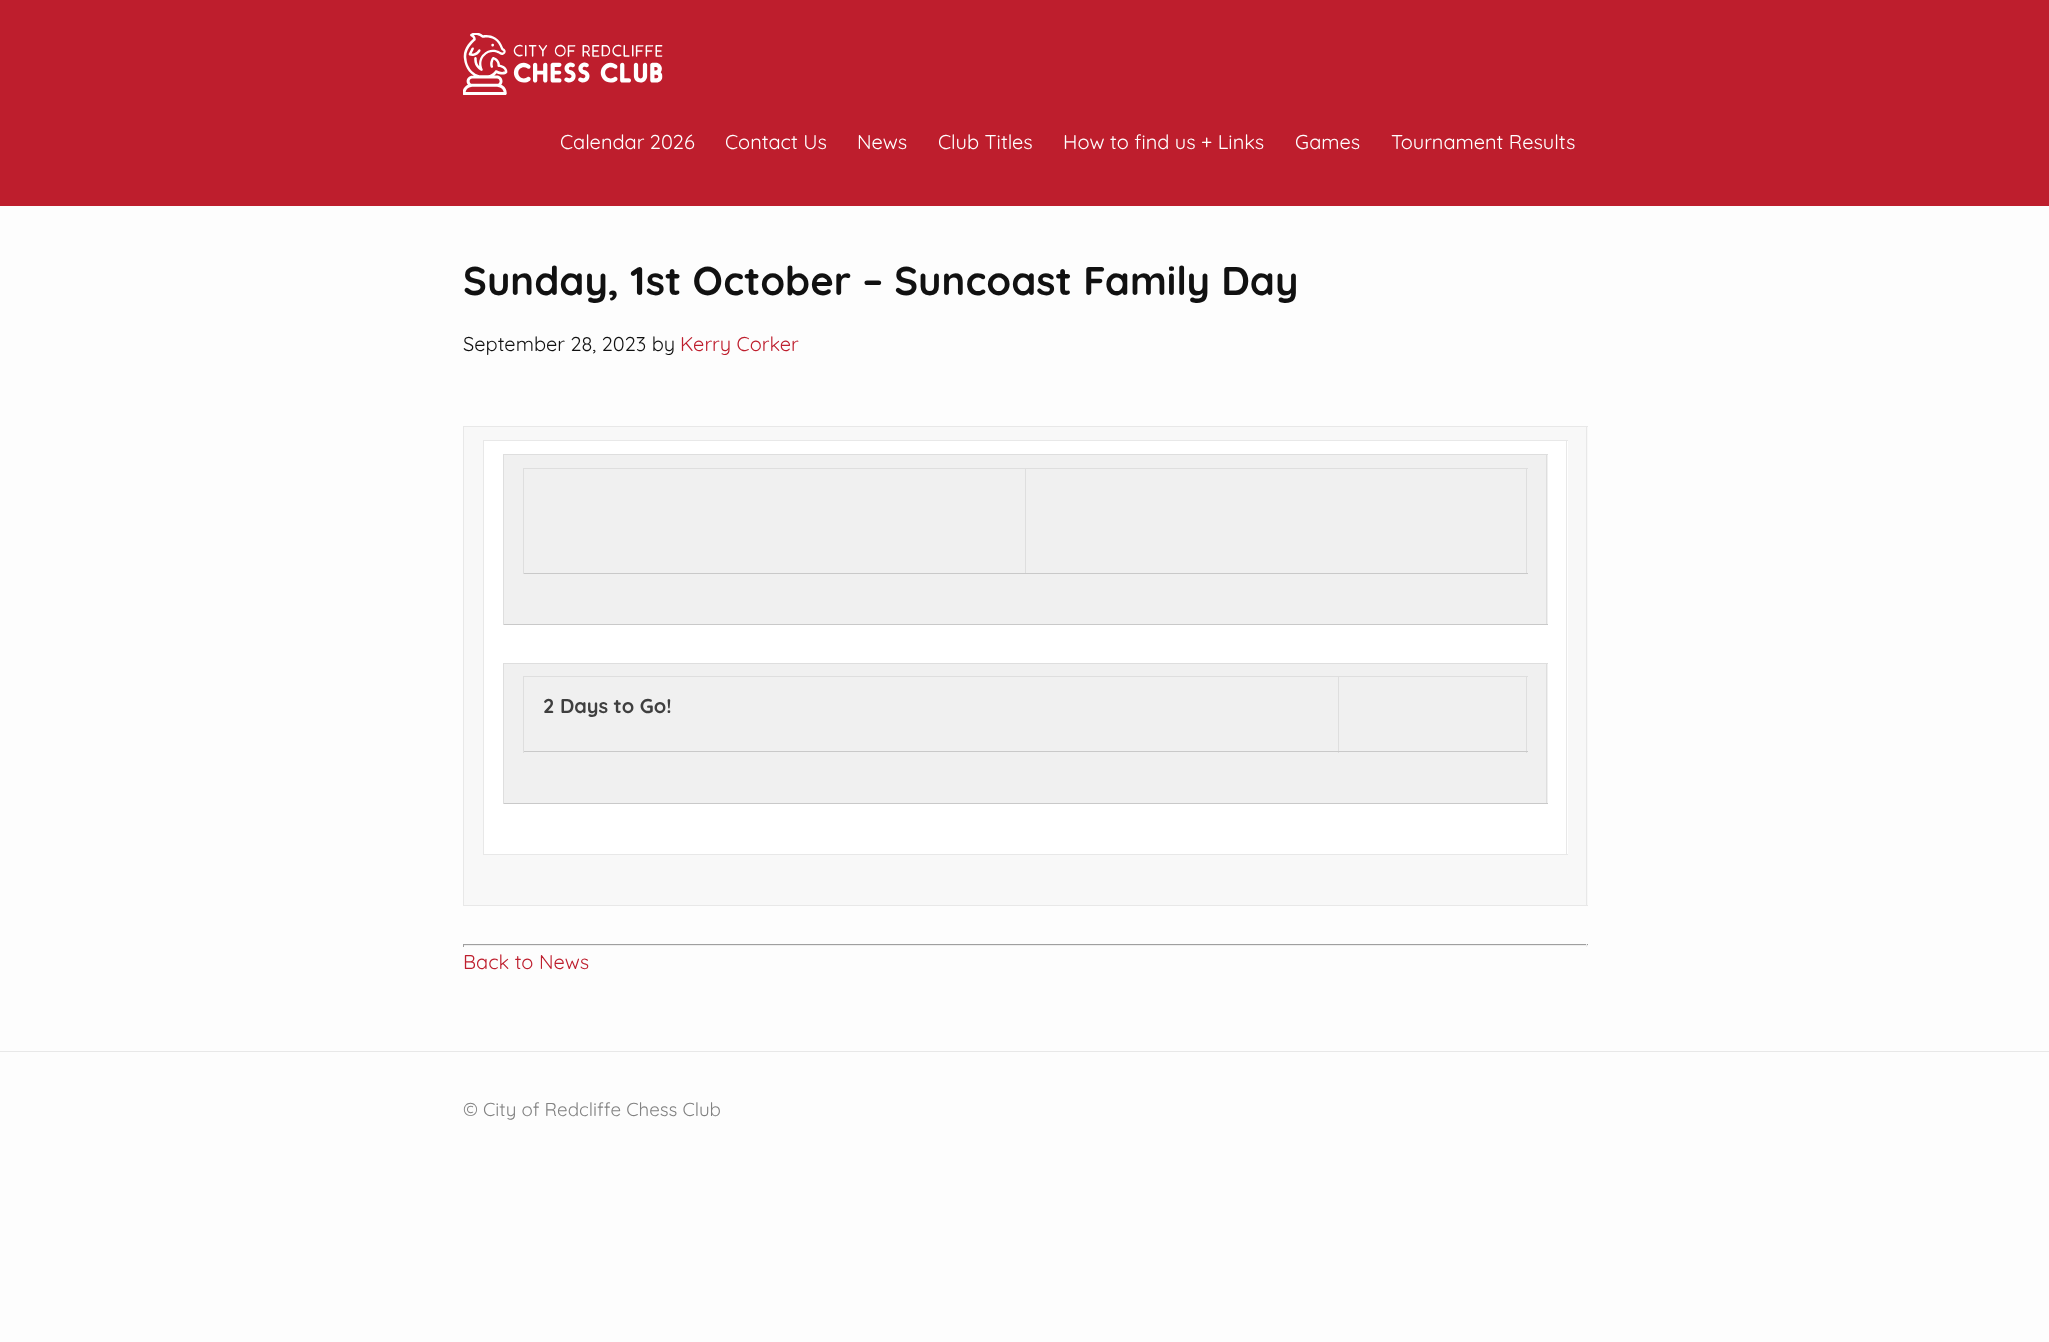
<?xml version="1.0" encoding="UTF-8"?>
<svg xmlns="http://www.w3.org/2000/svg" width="2049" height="1342">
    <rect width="100%" height="100%" fill="#FDFDFD"/>
    <rect x="0" y="0" width="2049" height="206" fill="#BE1E2D"/>
    <image x="463" y="33" width="200" height="62" href="img_01.png"/>
    <text x="560" y="149" font-family="Quicksand" font-size="20" fill="#FFFFFF">Calendar 2026</text>
    <text x="725" y="149" font-family="Quicksand" font-size="20" fill="#FFFFFF">Contact Us</text>
    <text x="857" y="149" font-family="Quicksand" font-size="20" fill="#FFFFFF">News</text>
    <text x="938" y="149" font-family="Quicksand" font-size="20" fill="#FFFFFF">Club Titles</text>
    <text x="1063" y="149" font-family="Quicksand" font-size="20" fill="#FFFFFF">How to find us + Links</text>
    <text x="1295" y="149" font-family="Quicksand" font-size="20" fill="#FFFFFF">Games</text>
    <text x="1391" y="149" font-family="Quicksand" font-size="20" fill="#FFFFFF">Tournament Results</text>
    <text x="463" y="295" font-family="Quicksand" font-size="40" font-weight="700" fill="#111111">Sunday, 1st October – Suncoast Family Day</text>
    <text x="463" y="351" font-family="Quicksand" font-size="20" fill="#111111">September 28, 2023 by</text>
    <text x="680" y="351" font-family="Quicksand" font-size="20" fill="#BE1E2D">Kerry Corker</text>
    <rect x="464" y="427" width="1124" height="478" fill="#F8F8F8"/>
    <rect x="463" y="426" width="1125" height="1" fill="#E8E8E8"/>
    <rect x="1586" y="426" width="1" height="480" fill="#E8E8E8"/>
    <rect x="463" y="905" width="1125" height="1" fill="#E8E8E8"/>
    <rect x="463" y="426" width="1" height="480" fill="#E8E8E8"/>
    <rect x="484" y="441" width="1084" height="413" fill="#FFFFFF"/>
    <rect x="483" y="440" width="1085" height="1" fill="#E8E8E8"/>
    <rect x="1566" y="440" width="1" height="415" fill="#E8E8E8"/>
    <rect x="483" y="854" width="1085" height="1" fill="#E8E8E8"/>
    <rect x="483" y="440" width="1" height="415" fill="#E8E8E8"/>
    <rect x="504" y="455" width="1044" height="169" fill="#F0F0F0"/>
    <rect x="503" y="454" width="1045" height="1" fill="#DEDEDE"/>
    <rect x="1546" y="454" width="1" height="171" fill="#DEDEDE"/>
    <rect x="503" y="624" width="1045" height="1" fill="#C9C9C9"/>
    <rect x="503" y="454" width="1" height="171" fill="#DEDEDE"/>
    <rect x="1025" y="468" width="503" height="1" fill="#DEDEDE"/>
    <rect x="1526" y="468" width="1" height="106" fill="#DEDEDE"/>
    <rect x="1025" y="573" width="503" height="1" fill="#C9C9C9"/>
    <rect x="1025" y="468" width="1" height="106" fill="#DEDEDE"/>
    <rect x="523" y="468" width="503" height="1" fill="#DEDEDE"/>
    <rect x="523" y="573" width="503" height="1" fill="#C9C9C9"/>
    <rect x="523" y="468" width="1" height="106" fill="#DEDEDE"/>
    <rect x="504" y="664" width="1044" height="139" fill="#F0F0F0"/>
    <rect x="503" y="663" width="1045" height="1" fill="#DEDEDE"/>
    <rect x="1546" y="663" width="1" height="141" fill="#DEDEDE"/>
    <rect x="503" y="803" width="1045" height="1" fill="#C9C9C9"/>
    <rect x="503" y="663" width="1" height="141" fill="#DEDEDE"/>
    <rect x="1338" y="676" width="190" height="1" fill="#DEDEDE"/>
    <rect x="1526" y="676" width="1" height="77" fill="#DEDEDE"/>
    <rect x="1338" y="751" width="190" height="1" fill="#C9C9C9"/>
    <rect x="1338" y="676" width="1" height="77" fill="#DEDEDE"/>
    <rect x="523" y="676" width="816" height="1" fill="#DEDEDE"/>
    <rect x="523" y="751" width="816" height="1" fill="#C9C9C9"/>
    <rect x="523" y="676" width="1" height="77" fill="#DEDEDE"/>
    <text x="543" y="713" font-family="Quicksand" font-size="20" font-weight="700" fill="#3F3F3F">2 Days to Go!</text>
    <rect x="463" y="944" width="1125" height="1" fill="#9F9F9F"/>
    <rect x="1586" y="944" width="1" height="3" fill="#EEEEEE"/>
    <rect x="463" y="945" width="1125" height="1" fill="#EEEEEE"/>
    <rect x="463" y="944" width="1" height="3" fill="#9F9F9F"/>
    <text x="463" y="969" font-family="Quicksand" font-size="20" fill="#BE1E2D">Back to News</text>
    <rect x="0" y="1051" width="2049" height="1" fill="#E8E8E8"/>
    <text x="463" y="1116" font-family="Quicksand" font-size="18.75" fill="#828282">© City of Redcliffe Chess Club</text>
</svg>
